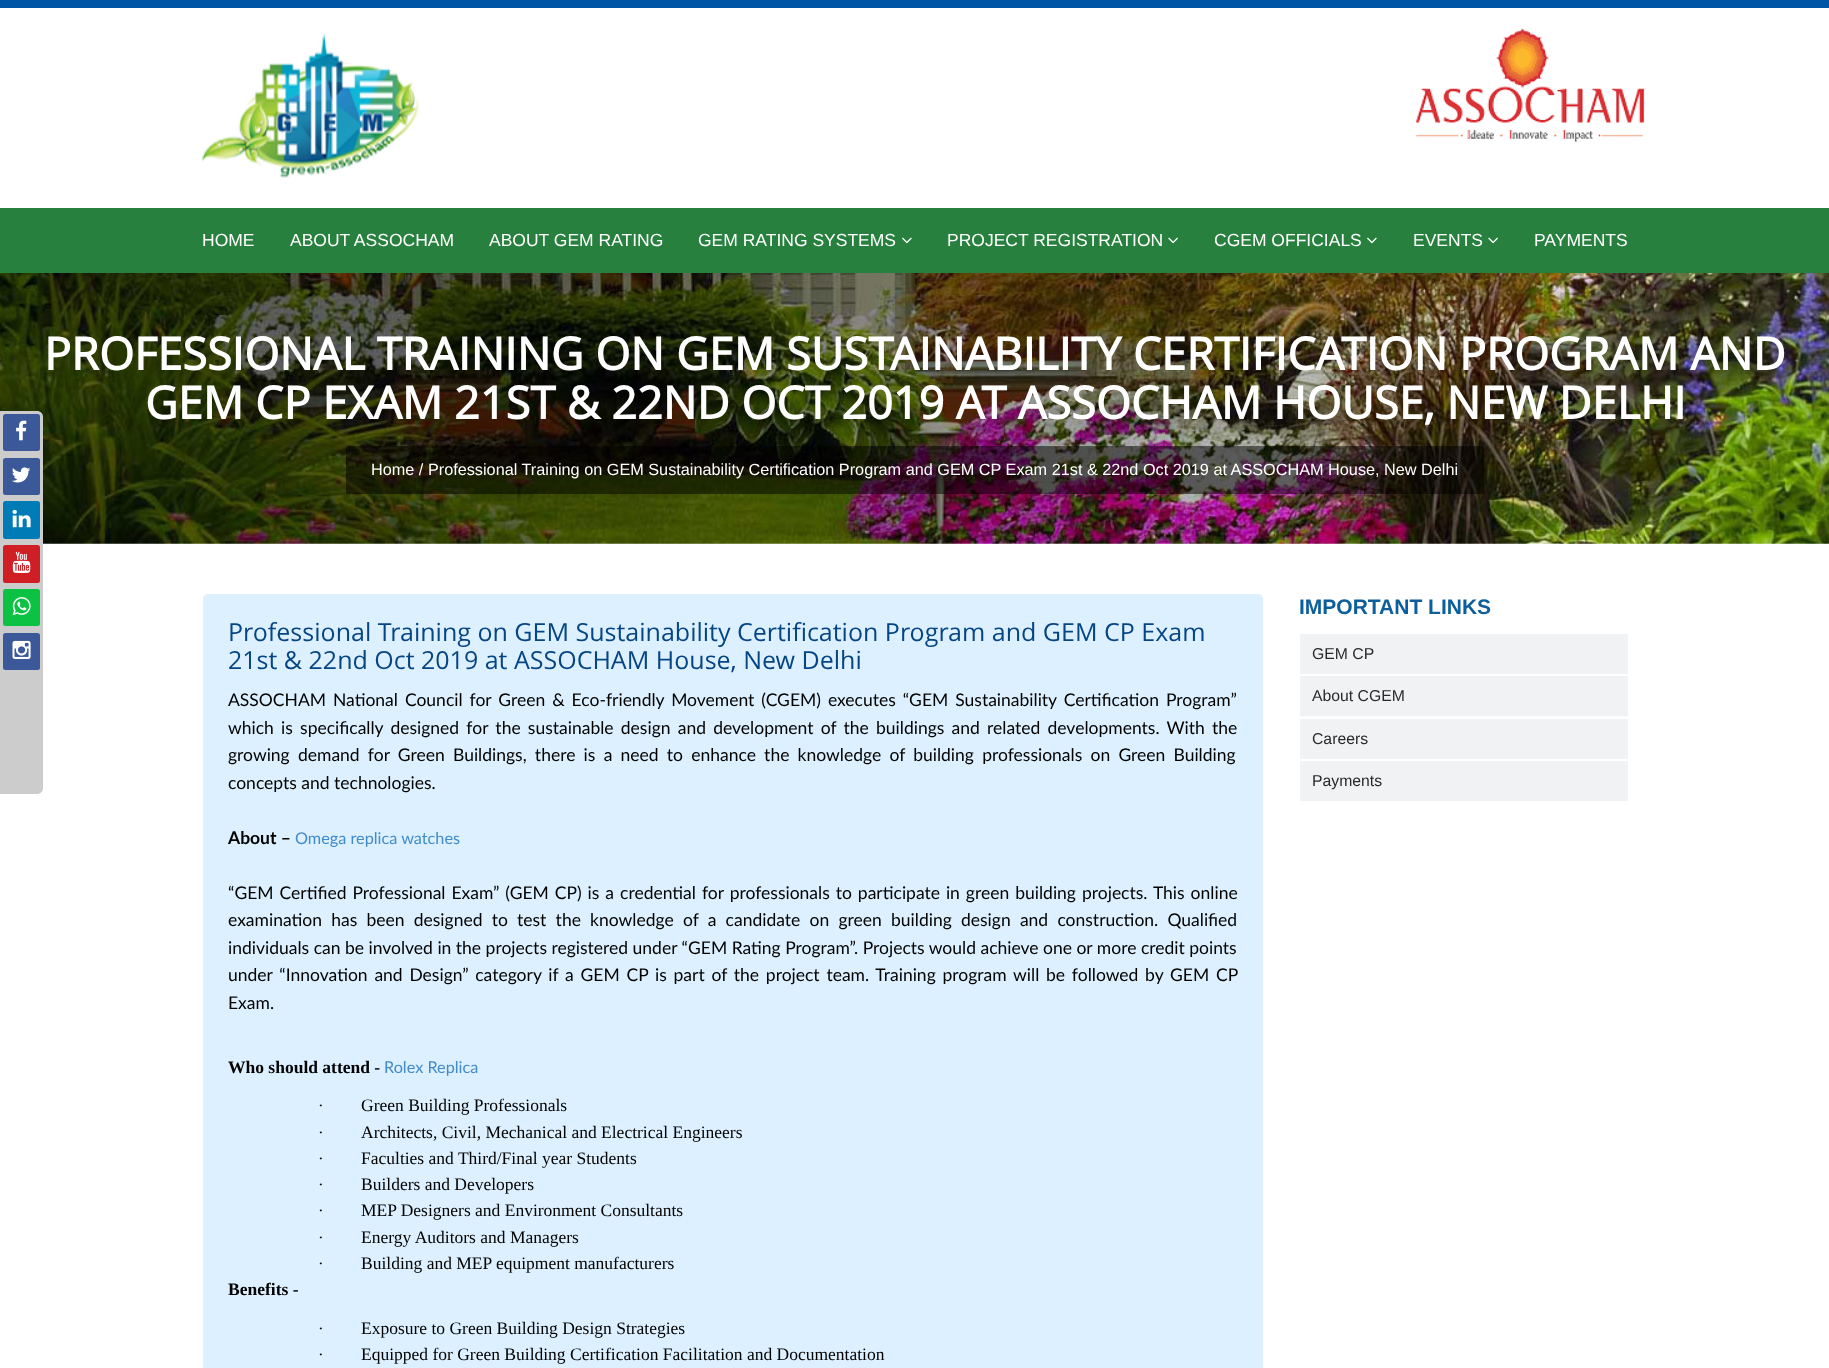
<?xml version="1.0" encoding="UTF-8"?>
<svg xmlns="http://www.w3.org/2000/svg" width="1829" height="1368">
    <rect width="100%" height="100%" fill="#FFFFFF"/>
    <rect x="0" y="0" width="1829" height="8" fill="#0055A5"/>
    <image x="201" y="33" width="218" height="145" href="img_01.png"/>
    <image x="1415" y="28" width="230" height="115" href="img_02.png"/>
    <rect x="0" y="208" width="1829" height="65" fill="#27803E"/>
    <text x="202" y="246" font-family="Liberation Sans" font-size="17.5" fill="#FFFFFF">HOME</text>
    <text x="290" y="246" font-family="Liberation Sans" font-size="17.5" fill="#FFFFFF">ABOUT ASSOCHAM</text>
    <text x="489" y="246" font-family="Liberation Sans" font-size="17.5" fill="#FFFFFF">ABOUT GEM RATING</text>
    <text x="698" y="246" font-family="Liberation Sans" font-size="17.5" fill="#FFFFFF">GEM RATING SYSTEMS</text>
    <image x="902" y="237" width="10" height="7" href="img_03.png"/>
    <text x="947" y="246" font-family="Liberation Sans" font-size="17.5" fill="#FFFFFF">PROJECT REGISTRATION</text>
    <image x="1168" y="237" width="10" height="7" href="img_04.png"/>
    <text x="1214" y="246" font-family="Liberation Sans" font-size="17.5" fill="#FFFFFF">CGEM OFFICIALS</text>
    <image x="1367" y="237" width="10" height="7" href="img_03.png"/>
    <text x="1413" y="246" font-family="Liberation Sans" font-size="17.5" fill="#FFFFFF">EVENTS</text>
    <image x="1488" y="237" width="10" height="7" href="img_04.png"/>
    <text x="1534" y="246" font-family="Liberation Sans" font-size="17.5" fill="#FFFFFF">PAYMENTS</text>
    <image x="0" y="273" width="1829" height="271" href="img_11.png"/>
    <path d="M 0 411 H 37 C 40.5 411 43 413.5 43 417 V 788 C 43 791.5 40.5 794 37 794 H 0 Z" fill="#CCCCCC"/>
    <rect x="3" y="414" width="37" height="37" rx="2.5" fill="#3B5998"/>
    <image x="16" y="420" width="11" height="21" href="img_05.png"/>
    <rect x="3" y="458" width="37" height="37" rx="2.5" fill="#3B5998"/>
    <image x="12" y="467" width="19" height="16" href="img_06.png"/>
    <rect x="3" y="501" width="37" height="38" rx="2.5" fill="#007BB6"/>
    <image x="12" y="509" width="19" height="19" href="img_07.png"/>
    <rect x="3" y="545" width="37" height="38" rx="2.5" fill="#CF1F25"/>
    <image x="12" y="551" width="19" height="22" href="img_08.png"/>
    <rect x="3" y="589" width="37" height="37" rx="2.5" fill="#0CC243"/>
    <image x="12" y="597" width="19" height="19" href="img_09.png"/>
    <rect x="3" y="633" width="37" height="37" rx="2.5" fill="#3B5998"/>
    <image x="12" y="640" width="19" height="19" href="img_10.png"/>
    <text x="44" y="370" font-family="Open Sans" font-size="45" font-weight="700" fill="#FFFFFF">PROFESSIONAL TRAINING ON GEM SUSTAINABILITY CERTIFICATION PROGRAM AND</text>
    <text x="145" y="419" font-family="Open Sans" font-size="45" font-weight="700" fill="#FFFFFF">GEM CP EXAM 21ST &amp; 22ND OCT 2019 AT ASSOCHAM HOUSE, NEW DELHI</text>
    <rect x="346" y="446" width="1138" height="48" rx="2.5" fill="#000000" fill-opacity="0.5"/>
    <text x="371" y="475" font-family="Liberation Sans" font-size="16.25" fill="#FFFFFF">Home / Professional Training on GEM Sustainability Certification Program and GEM CP Exam 21st &amp; 22nd Oct 2019 at ASSOCHAM House, New Delhi</text>
    <rect x="203" y="594" width="1060" height="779" rx="5" fill="#DCF0FF"/>
    <text font-family="Open Sans" font-size="25" fill="#064584">
        <tspan x="228" y="641">Professional Training on GEM Sustainability Certification Program and GEM CP Exam</tspan>
        <tspan x="228" y="669">21st &amp; 22nd Oct 2019 at ASSOCHAM House, New Delhi</tspan>
    </text>
    <text font-family="Lato" font-size="17.5" fill="#000000">
        <tspan x="228" y="706" word-spacing="2.5">ASSOCHAM National Council for Green &amp; Eco-friendly Movement (CGEM) executes “GEM Sustainability Certification Program”</tspan>
        <tspan x="228" y="734" word-spacing="2.75">which is specifically designed for the sustainable design and development of the buildings and related developments. With the</tspan>
        <tspan x="228" y="761" word-spacing="3.75">growing demand for Green Buildings, there is a need to enhance the knowledge of building professionals on Green Building</tspan>
        <tspan x="228" y="789">concepts and technologies.</tspan>
    </text>
    <text x="228" y="844" font-family="Lato" font-size="17.5" font-weight="700" fill="#000000">About –</text>
    <text x="295" y="844" font-family="Lato" font-size="16.25" fill="#428BCA">Omega replica watches</text>
    <text font-family="Lato" font-size="17.5" fill="#000000">
        <tspan x="228" y="899" word-spacing="1.5">“GEM Certified Professional Exam” (GEM CP) is a credential for professionals to participate in green building projects. This online</tspan>
        <tspan x="228" y="926" word-spacing="4.75">examination has been designed to test the knowledge of a candidate on green building design and construction. Qualified</tspan>
        <tspan x="228" y="954">individuals can be involved in the projects registered under “GEM Rating Program”. Projects would achieve one or more credit points</tspan>
        <tspan x="228" y="981" word-spacing="2.3">under “Innovation and Design” category if a GEM CP is part of the project team. Training program will be followed by GEM CP</tspan>
        <tspan x="228" y="1009">Exam.</tspan>
    </text>
    <text x="228" y="1073" font-family="Liberation Serif" font-size="17.5" font-weight="700" fill="#000000">Who should attend -</text>
    <text x="384" y="1073" font-family="Lato" font-size="16.25" fill="#428BCA">Rolex Replica</text>
    <text x="318" y="1111" font-family="Liberation Serif" font-size="17" fill="#000000">·</text>
    <text x="361" y="1111" font-family="Liberation Serif" font-size="17.5" fill="#000000">Green Building Professionals</text>
    <text x="318" y="1138" font-family="Liberation Serif" font-size="17" fill="#000000">·</text>
    <text x="361" y="1138" font-family="Liberation Serif" font-size="17.5" fill="#000000">Architects, Civil, Mechanical and Electrical Engineers</text>
    <text x="318" y="1164" font-family="Liberation Serif" font-size="17" fill="#000000">·</text>
    <text x="361" y="1164" font-family="Liberation Serif" font-size="17.5" fill="#000000">Faculties and Third/Final year Students</text>
    <text x="318" y="1190" font-family="Liberation Serif" font-size="17" fill="#000000">·</text>
    <text x="361" y="1190" font-family="Liberation Serif" font-size="17.5" fill="#000000">Builders and Developers</text>
    <text x="318" y="1216" font-family="Liberation Serif" font-size="17" fill="#000000">·</text>
    <text x="361" y="1216" font-family="Liberation Serif" font-size="17.5" fill="#000000">MEP Designers and Environment Consultants</text>
    <text x="318" y="1243" font-family="Liberation Serif" font-size="17" fill="#000000">·</text>
    <text x="361" y="1243" font-family="Liberation Serif" font-size="17.5" fill="#000000">Energy Auditors and Managers</text>
    <text x="318" y="1269" font-family="Liberation Serif" font-size="17" fill="#000000">·</text>
    <text x="361" y="1269" font-family="Liberation Serif" font-size="17.5" fill="#000000">Building and MEP equipment manufacturers</text>
    <text x="228" y="1295" font-family="Liberation Serif" font-size="17.5" font-weight="700" fill="#000000">Benefits -</text>
    <text x="318" y="1334" font-family="Liberation Serif" font-size="17" fill="#000000">·</text>
    <text x="361" y="1334" font-family="Liberation Serif" font-size="17.5" fill="#000000">Exposure to Green Building Design Strategies</text>
    <text x="318" y="1360" font-family="Liberation Serif" font-size="17" fill="#000000">·</text>
    <text x="361" y="1360" font-family="Liberation Serif" font-size="17.5" fill="#000000">Equipped for Green Building Certification Facilitation and Documentation</text>
    <text x="1299" y="614" font-family="Liberation Sans" font-size="21" font-weight="700" fill="#0C5E9C">IMPORTANT LINKS</text>
    <rect x="1300" y="634" width="328" height="40" fill="#F1F2F3"/>
    <text x="1312" y="659" font-family="Liberation Sans" font-size="15.75" fill="#292929">GEM CP</text>
    <rect x="1300" y="676" width="328" height="40" fill="#F1F2F3"/>
    <text x="1312" y="701" font-family="Liberation Sans" font-size="15.75" fill="#292929">About CGEM</text>
    <rect x="1300" y="719" width="328" height="40" fill="#F1F2F3"/>
    <text x="1312" y="744" font-family="Liberation Sans" font-size="15.75" fill="#292929">Careers</text>
    <rect x="1300" y="761" width="328" height="40" fill="#F1F2F3"/>
    <text x="1312" y="786" font-family="Liberation Sans" font-size="15.75" fill="#292929">Payments</text>
</svg>
